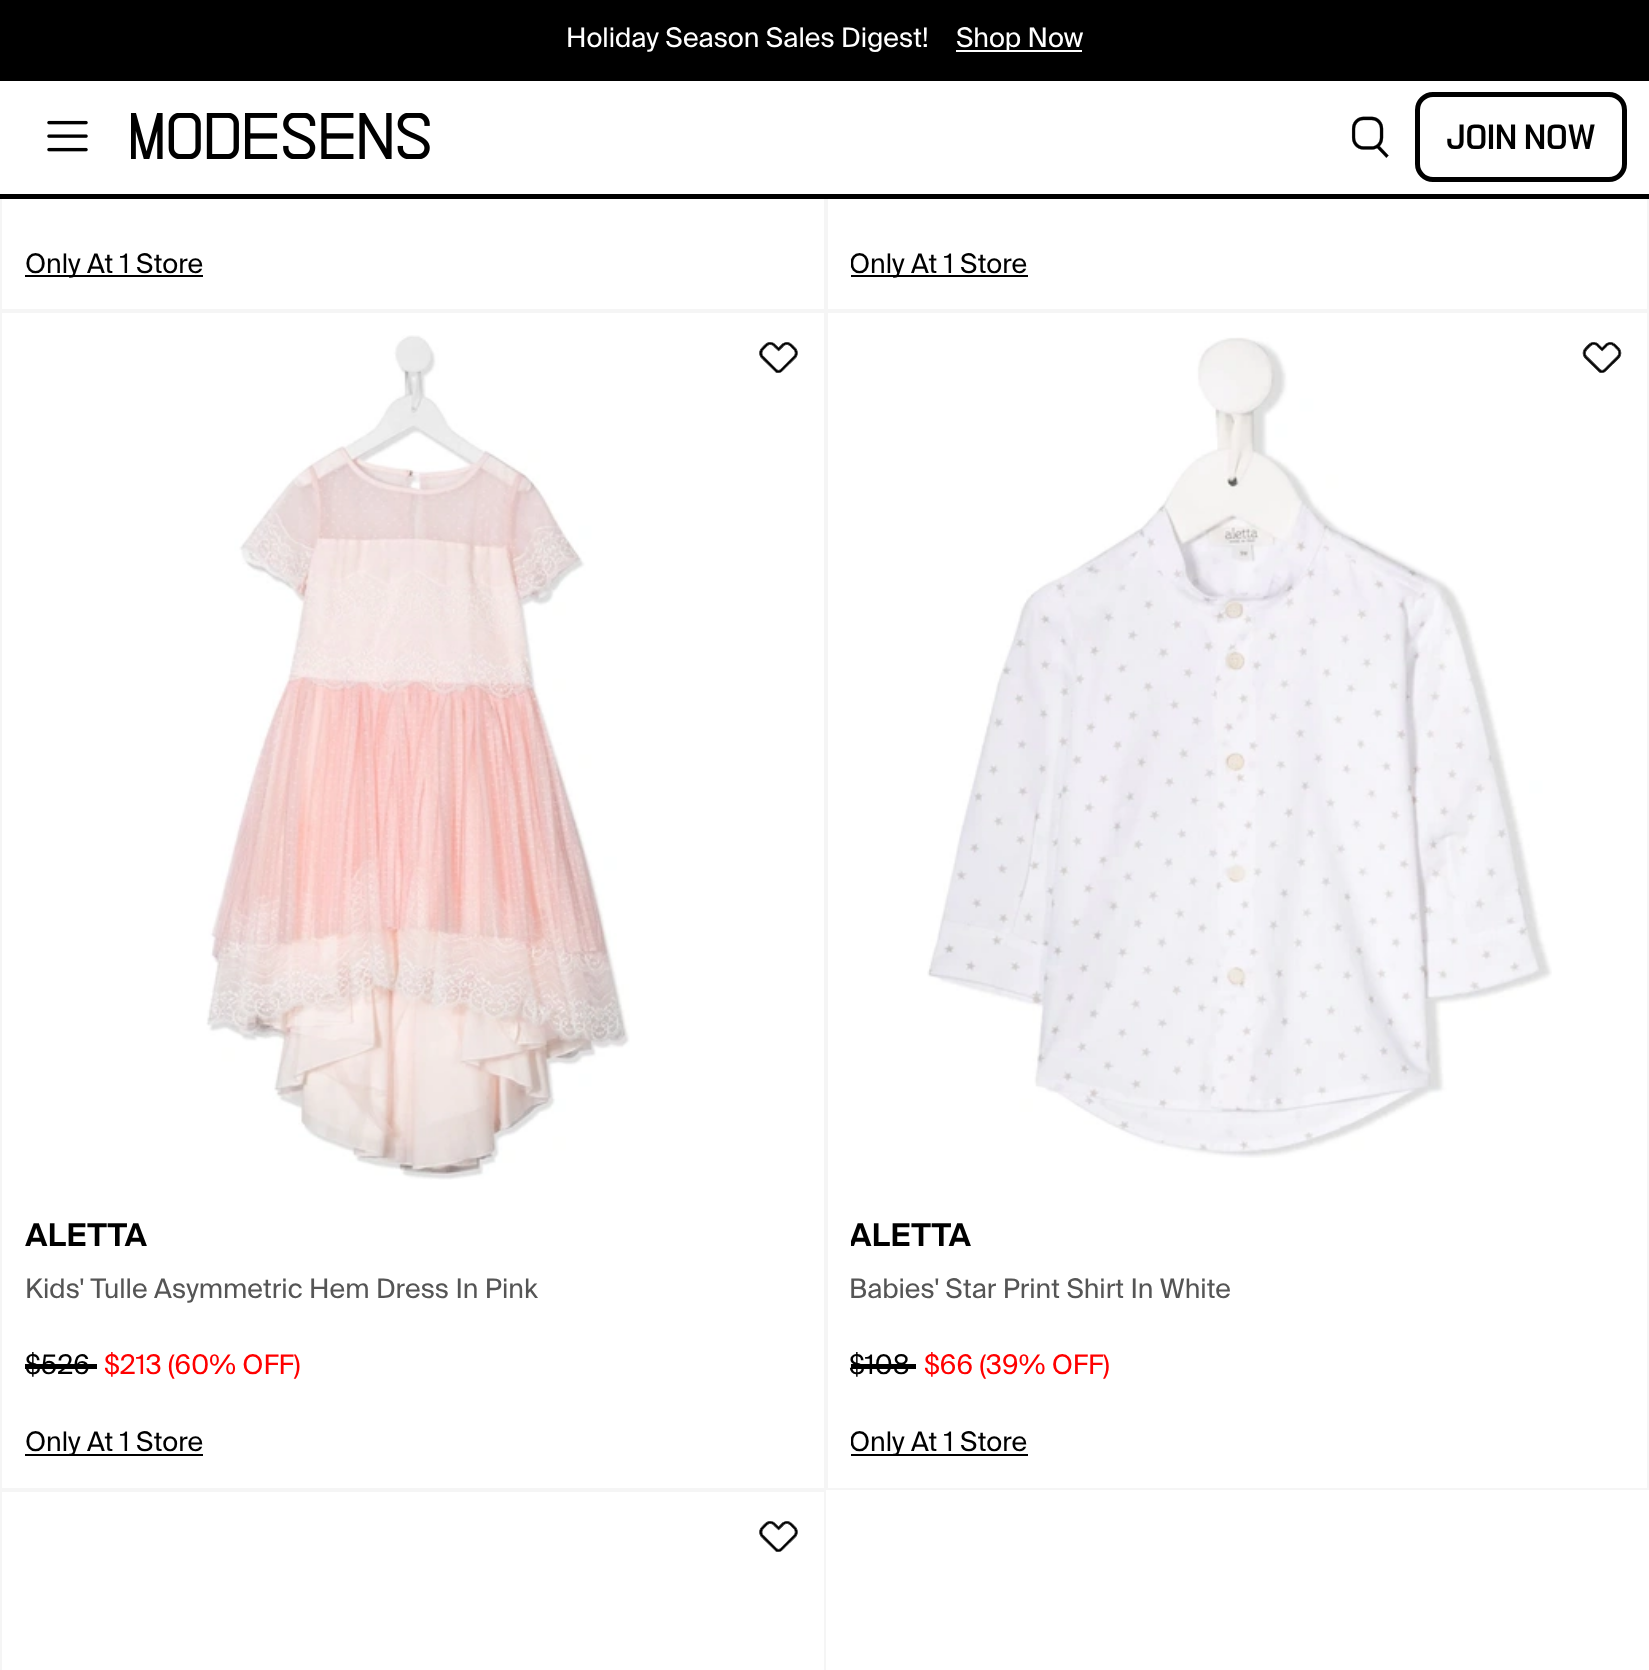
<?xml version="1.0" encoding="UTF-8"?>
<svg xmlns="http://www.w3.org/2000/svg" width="1649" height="1670">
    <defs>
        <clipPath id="clip1"><rect x="851" y="245" width="774" height="41"/></clipPath>
        <clipPath id="clip2"><rect x="851" y="1215" width="774" height="41"/></clipPath>
        <clipPath id="clip3"><rect x="851" y="1424" width="774" height="41"/></clipPath>
    </defs>
    <rect width="100%" height="100%" fill="#FFFFFF"/>
    <rect x="1" y="-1" width="824" height="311" fill="none" stroke="#F5F5F5" stroke-width="2"/>
    <rect x="827" y="-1" width="821" height="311" fill="none" stroke="#F5F5F5" stroke-width="2"/>
    <rect x="0" y="81" width="1649" height="113" fill="#FFFFFF"/>
    <rect x="0" y="0" width="1649" height="81" fill="#000000"/>
    <text x="566" y="47" font-family="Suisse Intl" font-size="27" fill="#FFFFFF">Holiday Season Sales Digest!</text>
    <rect x="956" y="50" width="126" height="2" fill="#FFFFFF"/>
    <text x="956" y="47" font-family="Suisse Intl" font-size="27" fill="#FFFFFF">Shop Now</text>
    <rect x="0" y="194" width="1649" height="5" fill="#000000"/>
    <image x="47" y="120" width="41" height="32" href="img_01.png"/>
    <image x="131" y="113" width="299" height="46" href="img_02.png"/>
    <image x="1351" y="116" width="38" height="42" href="img_03.png"/>
    <rect x="1417.5" y="94.5" width="207" height="85" rx="15.5" fill="none" stroke="#000000" stroke-width="5"/>
    <text x="1446" y="149" font-family="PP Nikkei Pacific" font-size="36" fill="#000000">JOIN NOW</text>
    <rect x="25" y="275" width="178" height="2" fill="#000000"/>
    <text x="25" y="273" font-family="Suisse Intl" font-size="27" fill="#000000">Only At 1 Store</text>
    <rect x="851" y="275" width="177" height="2" fill="#000000"/>
    <g clip-path="url(#clip1)">
        <text x="849" y="273" font-family="Suisse Intl" font-size="27" fill="#000000">Only At 1 Store</text>
    </g>
    <rect x="1" y="312" width="824" height="1177" fill="none" stroke="#F5F5F5" stroke-width="2"/>
    <image x="759" y="342" width="39" height="31" href="img_04.png"/>
    <image x="206" y="335" width="424" height="845" href="img_05.png"/>
    <text x="25" y="1246" font-family="Suisse Intl" font-size="31.5" font-weight="600" fill="#000000">ALETTA</text>
    <text x="25" y="1298" font-family="Suisse Intl" font-size="27" fill="#555555">Kids' Tulle Asymmetric Hem Dress In Pink</text>
    <text x="25" y="1374" font-family="Suisse Intl" font-size="27" fill="#000000">$526</text>
    <rect x="25" y="1364" width="72" height="5" fill="#000000"/>
    <text x="104" y="1374" font-family="Suisse Intl" font-size="27" fill="#FF0000">$213 (60% OFF)</text>
    <rect x="25" y="1454" width="178" height="2" fill="#000000"/>
    <text x="25" y="1451" font-family="Suisse Intl" font-size="27" fill="#000000">Only At 1 Store</text>
    <rect x="827" y="312" width="821" height="1177" fill="none" stroke="#F5F5F5" stroke-width="2"/>
    <image x="1582" y="342" width="40" height="31" href="img_06.png"/>
    <image x="927" y="337" width="625" height="821" href="img_07.png"/>
    <g clip-path="url(#clip2)">
        <text x="849" y="1246" font-family="Suisse Intl" font-size="31.5" font-weight="600" fill="#000000">ALETTA</text>
    </g>
    <text x="849" y="1298" font-family="Suisse Intl" font-size="27" fill="#555555">Babies' Star Print Shirt In White</text>
    <text x="849" y="1374" font-family="Suisse Intl" font-size="27" fill="#000000">$108</text>
    <rect x="851" y="1364" width="65" height="5" fill="#000000"/>
    <text x="924" y="1374" font-family="Suisse Intl" font-size="27" fill="#FF0000">$66 (39% OFF)</text>
    <rect x="851" y="1454" width="177" height="2" fill="#000000"/>
    <g clip-path="url(#clip3)">
        <text x="849" y="1451" font-family="Suisse Intl" font-size="27" fill="#000000">Only At 1 Store</text>
    </g>
    <rect x="1" y="1491" width="824" height="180" fill="none" stroke="#F5F5F5" stroke-width="2"/>
    <image x="759" y="1521" width="39" height="31" href="img_08.png"/>
</svg>
